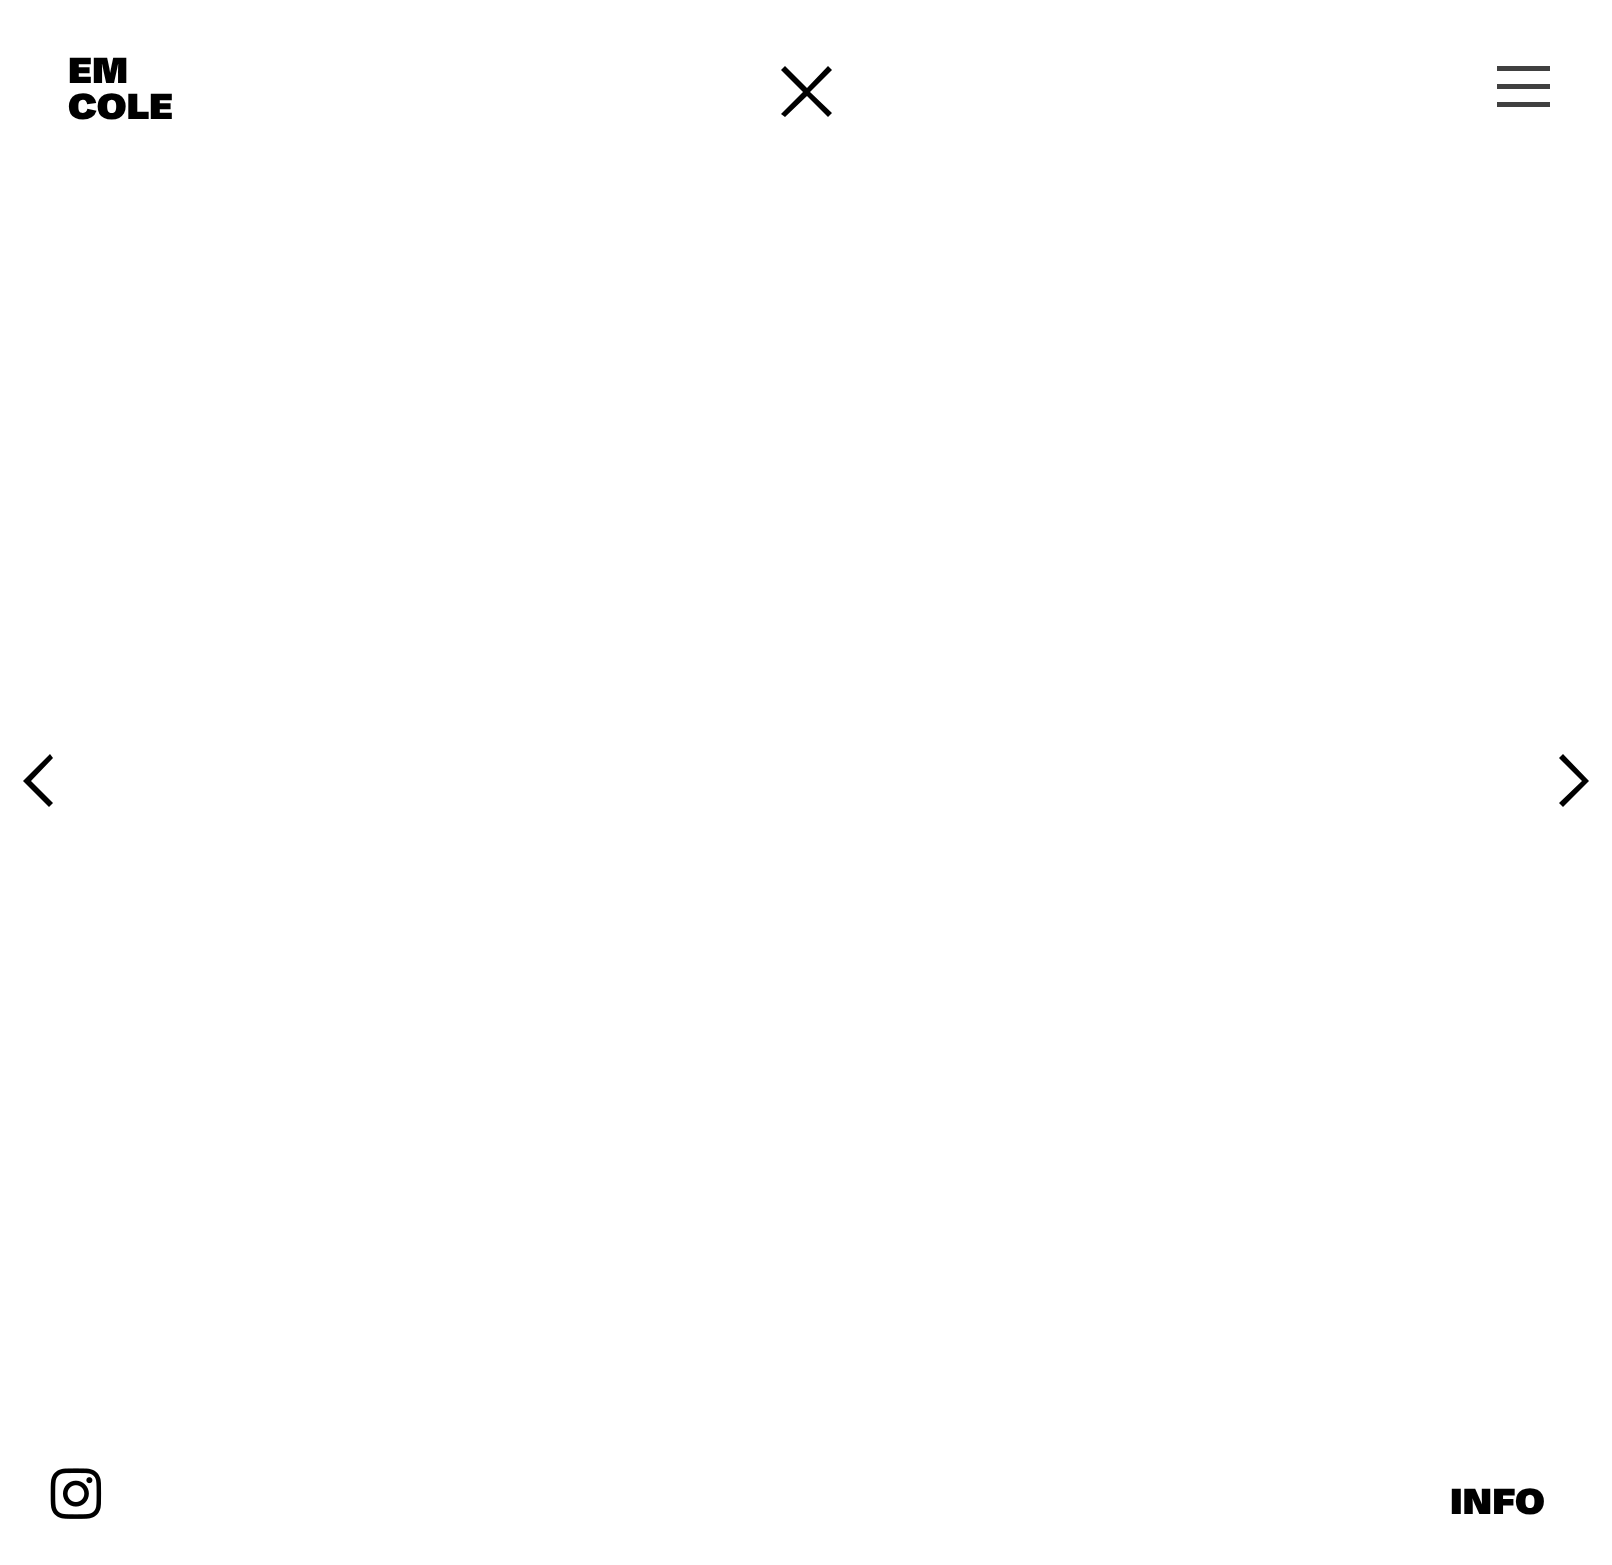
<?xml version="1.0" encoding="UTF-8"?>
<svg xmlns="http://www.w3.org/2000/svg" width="1612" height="1565">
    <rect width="100%" height="100%" fill="#FFFFFF"/>
    <text font-family="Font" font-size="36" font-weight="900" fill="#000000">
        <tspan x="68" y="83">EM</tspan>
        <tspan x="68" y="119">COLE</tspan>
    </text>
    <path d="M 781 70 L 803 92 L 781 114 L 785 117 L 807 96 L 828 117 L 832 113 L 810 92 L 832 70 L 828 66 L 807 88 L 785 66 Z" fill="#000000"/>
    <path d="M 53 803 L 31 781 L 53 758 L 50 754 L 23 781 L 49 807 Z" fill="#000000"/>
    <path d="M 1589 781 L 1563 754 L 1559 758 L 1582 781 L 1559 803 L 1563 807 Z" fill="#000000"/>
    <image x="50" y="1468" width="52" height="51" href="img_01.png"/>
    <text x="1450" y="1514" font-family="Font" font-size="36" font-weight="900" fill="#000000">INFO</text>
    <path d="M 1550 66 V 71 H 1497 V 66 Z M 1550 84 V 89 H 1497 V 84 Z M 1550 102 V 107 H 1497 V 102 Z" fill="#404040"/>
</svg>
